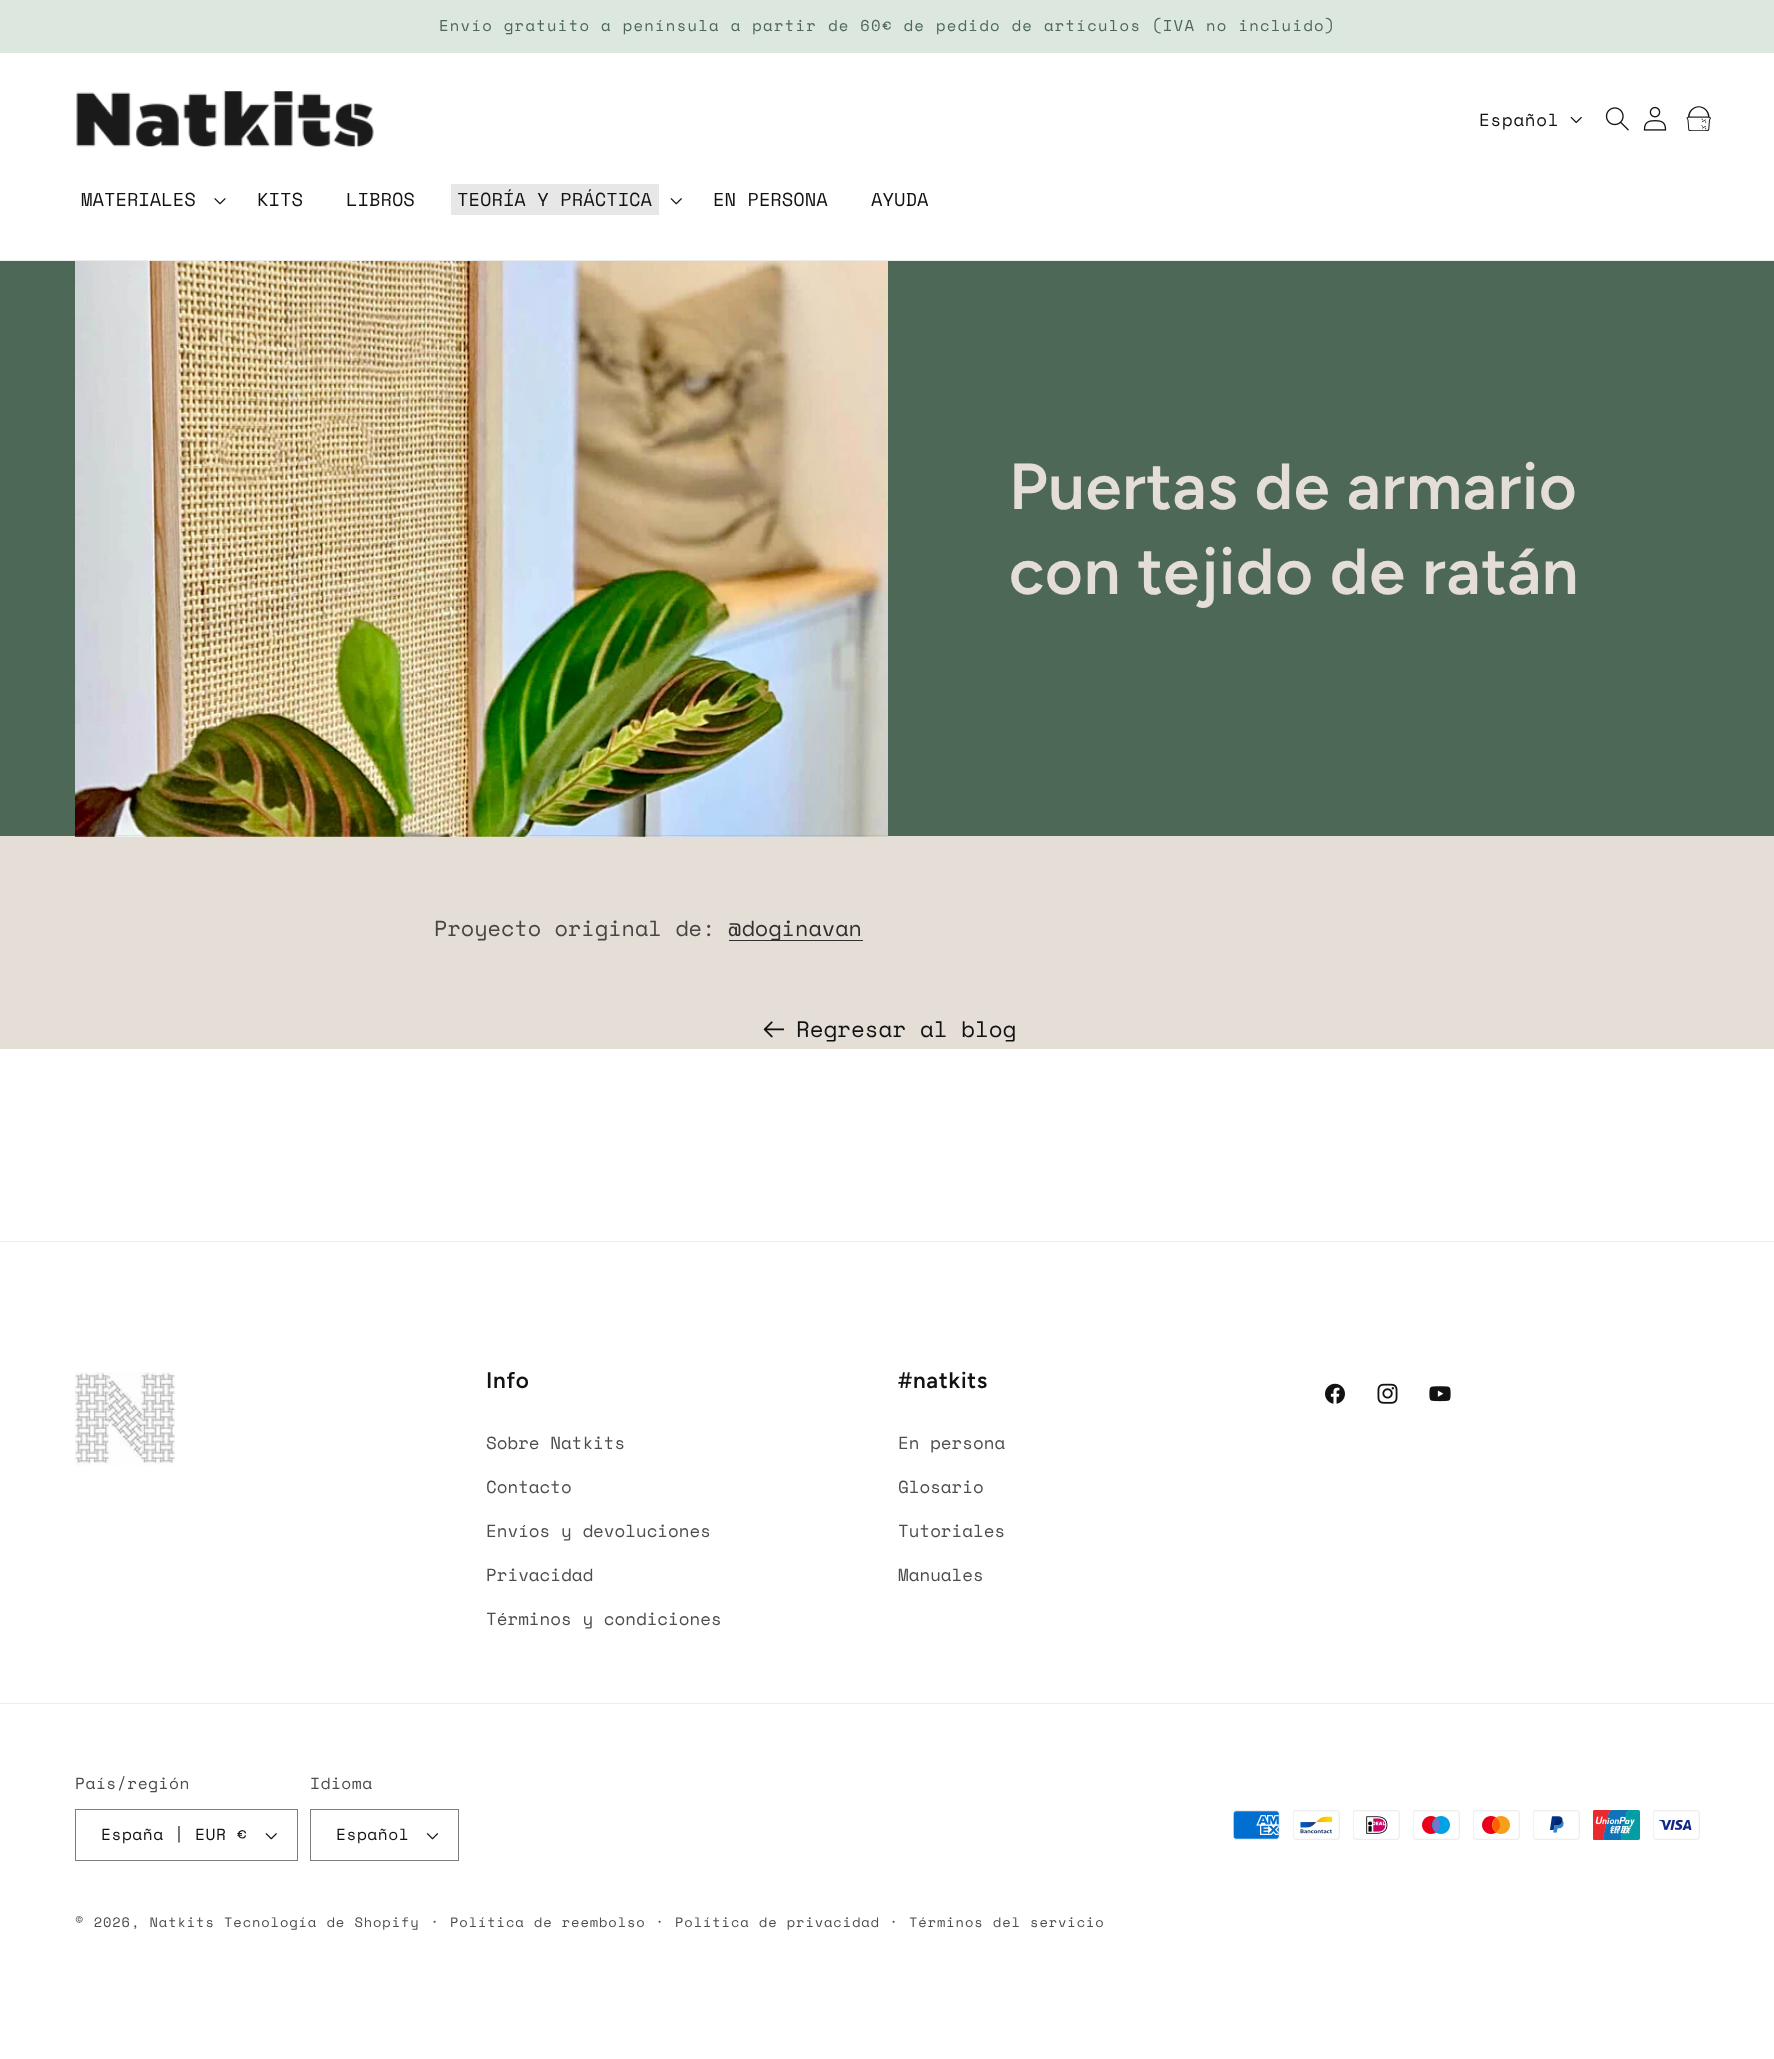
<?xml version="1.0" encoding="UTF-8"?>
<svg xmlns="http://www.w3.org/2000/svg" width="1774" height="2059">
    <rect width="100%" height="100%" fill="#FFFFFF"/>
    <rect x="0" y="0" width="1774" height="53" fill="#DCE7E0"/>
    <text x="439" y="31" font-family="Space Mono" font-size="15.62" letter-spacing="1.25" fill="#4E6857">Envío gratuito a península a partir de 60€ de pedido de artículos (IVA no incluido)</text>
    <rect x="0" y="260" width="1774" height="1" fill="#ECECEC"/>
    <image x="76" y="91" width="298" height="56" href="img_01.png"/>
    <text x="1479" y="126" font-family="Space Mono" font-size="17.5" letter-spacing="0.75" fill="#121212">Español</text>
    <image x="1570" y="116" width="12" height="8" href="img_02.png"/>
    <image x="1605" y="107" width="24" height="24" href="img_03.png"/>
    <image x="1643" y="106" width="24" height="25" href="img_04.png"/>
    <image x="1686" y="106" width="25" height="25" href="img_05.png"/>
    <text x="81" y="206" font-family="Space Mono" font-size="18.75" fill="#121212">MATERIALES</text>
    <image x="214" y="198" width="12" height="7" href="img_06.png"/>
    <text x="257" y="206" font-family="Space Mono" font-size="18.75" fill="#121212">KITS</text>
    <text x="346" y="206" font-family="Space Mono" font-size="18.75" fill="#121212">LIBROS</text>
    <rect x="451" y="184" width="208" height="31" fill="#E7E7E7"/>
    <text x="457" y="206" font-family="Space Mono" font-size="18.75" fill="#121212">TEORÍA Y PRÁCTICA</text>
    <image x="670" y="198" width="12" height="7" href="img_07.png"/>
    <text x="713" y="206" font-family="Space Mono" font-size="18.75" fill="#121212">EN PERSONA</text>
    <text x="871" y="206" font-family="Space Mono" font-size="18.75" fill="#121212">AYUDA</text>
    <rect x="0" y="261" width="1774" height="575" fill="#4E6857"/>
    <rect x="0" y="836" width="1774" height="213" fill="#E5DED7"/>
    <image x="75" y="261" width="813" height="576" href="img_08.png"/>
    <text font-family="Figtree" font-size="65" font-weight="600" letter-spacing="0.75" fill="#E5DED7">
        <tspan x="1009" y="509">Puertas de armario</tspan>
        <tspan x="1009" y="594">con tejido de ratán</tspan>
    </text>
    <text x="434" y="936" font-family="Space Mono" font-size="21.9" fill="#474543">Proyecto original de:</text>
    <rect x="729" y="940" width="134" height="1" fill="#323130"/>
    <text x="728" y="936" font-family="Space Mono" font-size="21.9" fill="#31302F">@doginavan</text>
    <image x="763" y="1021" width="21" height="17" href="img_09.png"/>
    <text x="796" y="1037" font-family="Space Mono" font-size="22.5" fill="#121212">Regresar al blog</text>
    <rect x="0" y="1241" width="1774" height="1" fill="#ECECEC"/>
    <image x="75" y="1372" width="100" height="94" href="img_10.png"/>
    <text x="486" y="1388" font-family="Figtree" font-size="22.5" font-weight="600" letter-spacing="0.75" fill="#121212">Info</text>
    <text x="486" y="1449" font-family="Space Mono" font-size="17.5" fill="#4D4D4D">Sobre Natkits</text>
    <text x="486" y="1493" font-family="Space Mono" font-size="17.5" fill="#4D4D4D">Contacto</text>
    <text x="486" y="1537" font-family="Space Mono" font-size="17.5" fill="#4D4D4D">Envíos y devoluciones</text>
    <text x="486" y="1581" font-family="Space Mono" font-size="17.5" fill="#4D4D4D">Privacidad</text>
    <text x="486" y="1625" font-family="Space Mono" font-size="17.5" fill="#4D4D4D">Términos y condiciones</text>
    <text x="898" y="1388" font-family="Figtree" font-size="22.5" font-weight="600" letter-spacing="0.75" fill="#121212">#natkits</text>
    <text x="898" y="1449" font-family="Space Mono" font-size="17.5" fill="#4D4D4D">En persona</text>
    <text x="898" y="1493" font-family="Space Mono" font-size="17.5" fill="#4D4D4D">Glosario</text>
    <text x="898" y="1537" font-family="Space Mono" font-size="17.5" fill="#4D4D4D">Tutoriales</text>
    <text x="898" y="1581" font-family="Space Mono" font-size="17.5" fill="#4D4D4D">Manuales</text>
    <image x="1325" y="1383" width="20" height="21" href="img_11.png"/>
    <image x="1377" y="1383" width="21" height="21" href="img_12.png"/>
    <image x="1429" y="1386" width="22" height="16" href="img_13.png"/>
    <rect x="0" y="1703" width="1774" height="1" fill="#ECECEC"/>
    <text x="75" y="1789" font-family="Space Mono" font-size="16.25" letter-spacing="0.5" fill="#4D4D4D">País/región</text>
    <image x="265" y="1833" width="12" height="7" href="img_07.png"/>
    <rect x="75.5" y="1809.5" width="222" height="51" fill="none" stroke="#7D7D7D"/>
    <text x="101" y="1840" font-family="Space Mono" font-size="16.25" letter-spacing="0.5" fill="#121212">España | EUR €</text>
    <text x="310" y="1789" font-family="Space Mono" font-size="16.25" letter-spacing="0.5" fill="#4D4D4D">Idioma</text>
    <image x="426" y="1833" width="13" height="7" href="img_14.png"/>
    <rect x="310.5" y="1809.5" width="148" height="51" fill="none" stroke="#7D7D7D"/>
    <text x="336" y="1840" font-family="Space Mono" font-size="16.25" letter-spacing="0.5" fill="#121212">Español</text>
    <image x="1233" y="1810" width="47" height="30" href="img_15.png"/>
    <image x="1293" y="1810" width="47" height="30" href="img_16.png"/>
    <image x="1353" y="1810" width="47" height="30" href="img_17.png"/>
    <image x="1413" y="1810" width="47" height="30" href="img_18.png"/>
    <image x="1473" y="1810" width="47" height="30" href="img_19.png"/>
    <image x="1533" y="1810" width="47" height="30" href="img_20.png"/>
    <image x="1593" y="1810" width="47" height="30" href="img_21.png"/>
    <image x="1653" y="1810" width="47" height="30" href="img_22.png"/>
    <text x="75" y="1927" font-family="Space Mono" font-size="13.75" letter-spacing="0.9" fill="#4D4D4D">© 2026, Natkits</text>
    <text x="224" y="1927" font-family="Space Mono" font-size="13.75" letter-spacing="0.9" fill="#4D4D4D">Tecnología de Shopify</text>
    <text x="430" y="1927" font-family="Space Mono" font-size="15" letter-spacing="0.9" fill="#4D4D4D">·</text>
    <text x="450" y="1927" font-family="Space Mono" font-size="13.75" letter-spacing="0.9" fill="#4D4D4D">Política de reembolso</text>
    <text x="655" y="1927" font-family="Space Mono" font-size="15" letter-spacing="0.9" fill="#4D4D4D">·</text>
    <text x="675" y="1927" font-family="Space Mono" font-size="13.75" letter-spacing="0.9" fill="#4D4D4D">Política de privacidad</text>
    <text x="889" y="1927" font-family="Space Mono" font-size="15" letter-spacing="0.9" fill="#4D4D4D">·</text>
    <text x="909" y="1927" font-family="Space Mono" font-size="13.75" letter-spacing="0.9" fill="#4D4D4D">Términos del servicio</text>
</svg>
